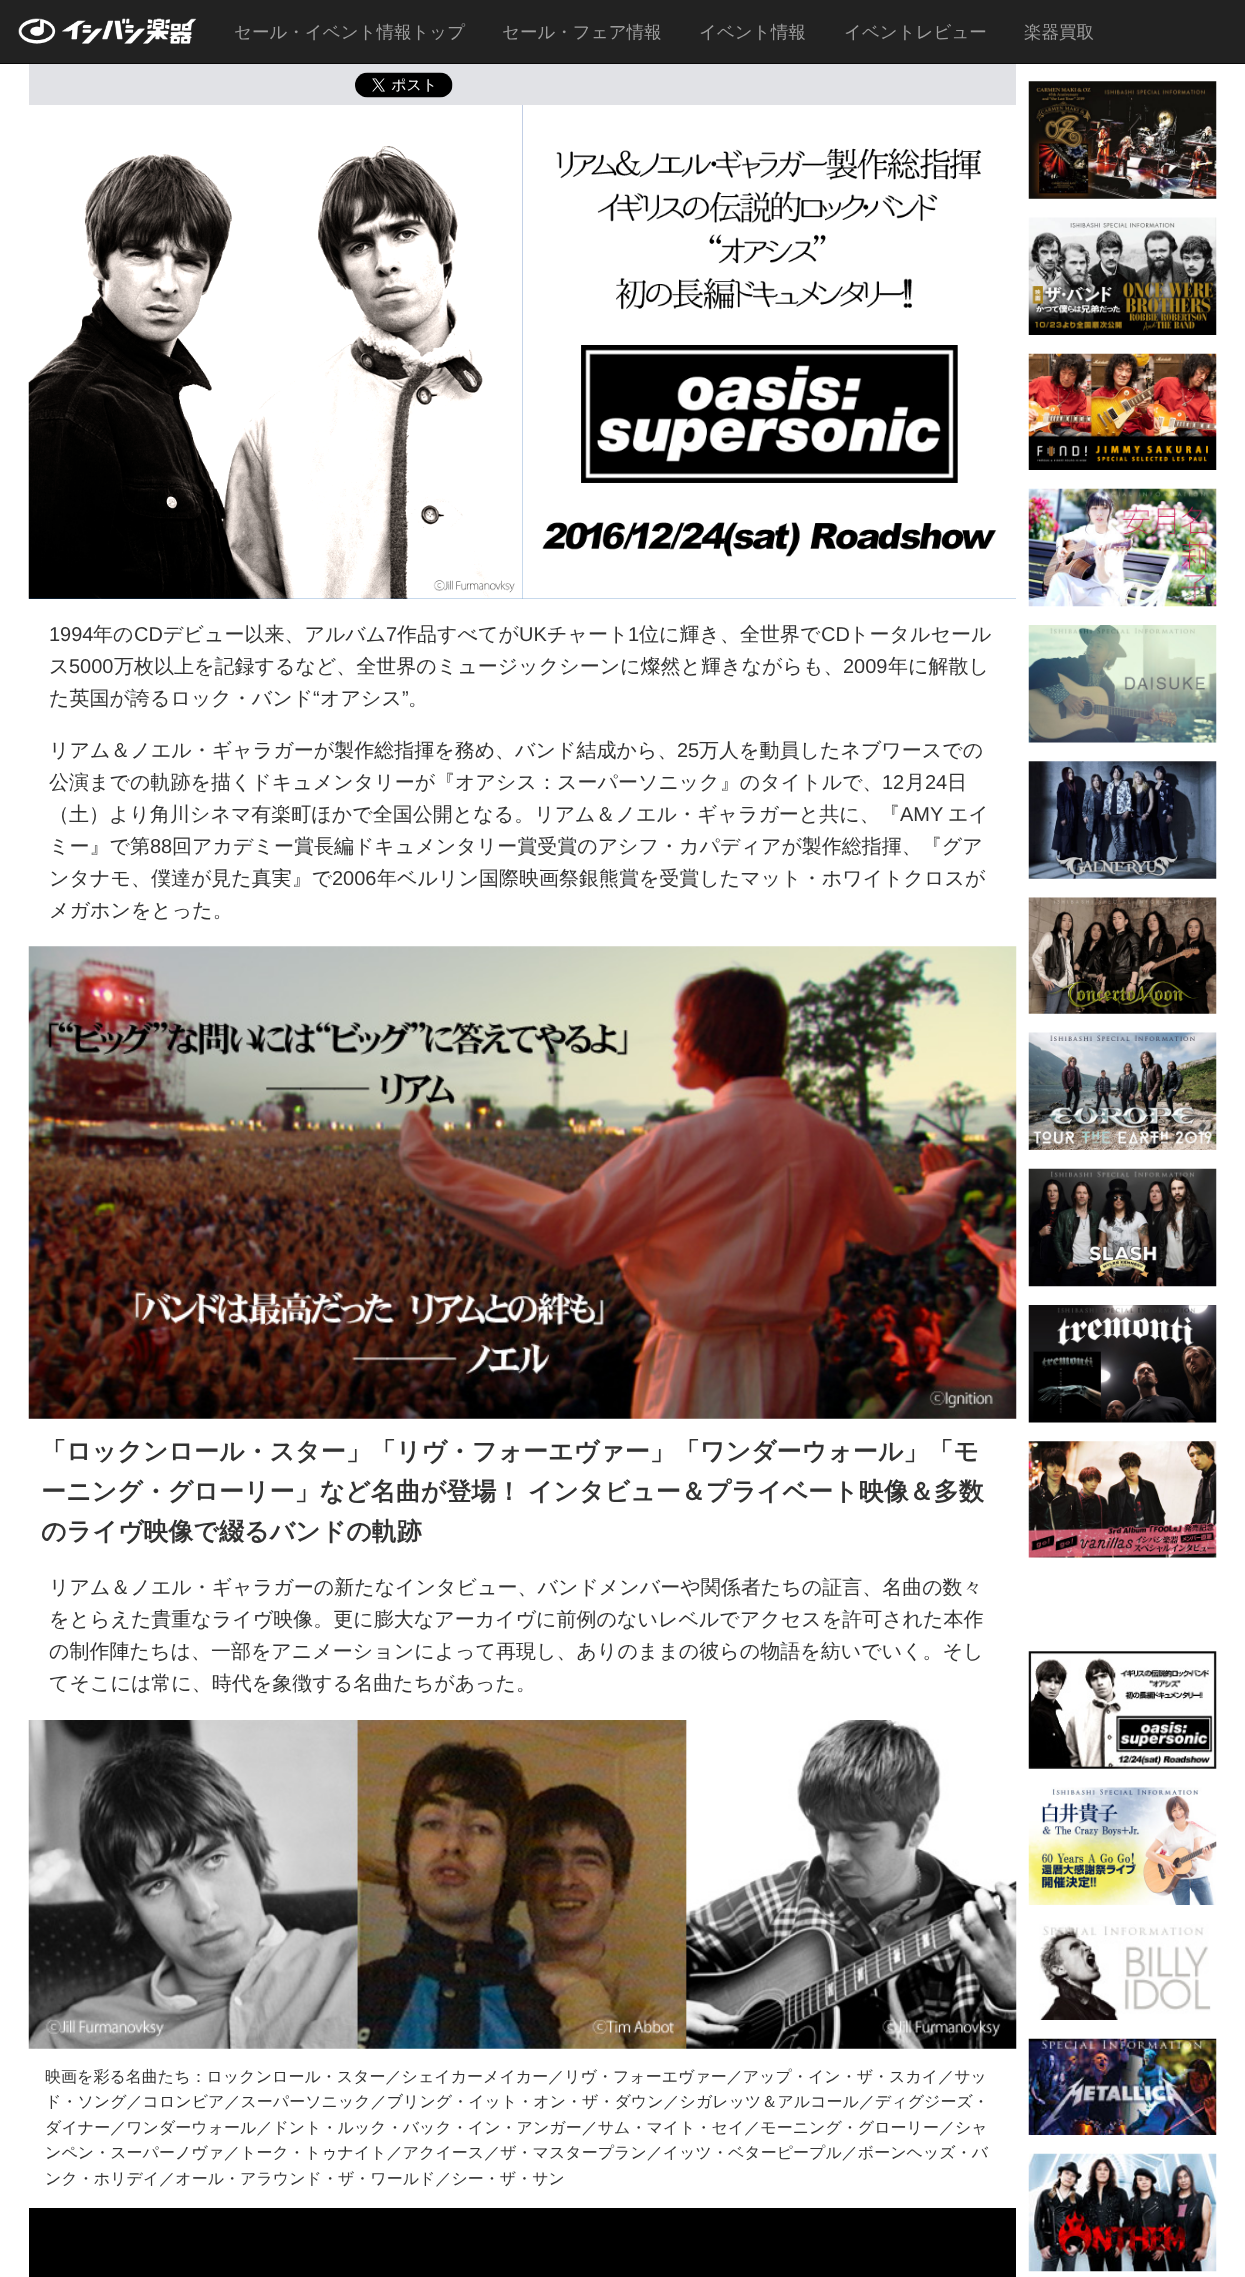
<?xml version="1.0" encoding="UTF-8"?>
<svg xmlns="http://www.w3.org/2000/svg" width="1245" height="2277">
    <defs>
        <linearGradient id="g1" gradientUnits="userSpaceOnUse" x1="523" y1="105" x2="523" y2="599"><stop offset="0" stop-color="#053692"/><stop offset="1" stop-color="#1E67B3"/></linearGradient>
    </defs>
    <rect width="100%" height="100%" fill="#FFFFFF"/>
    <rect x="0" y="0" width="1245" height="63" fill="#222222"/>
    <rect x="0" y="63" width="1245" height="1" fill="#080808"/>
    <image x="18" y="18" width="179" height="26" href="img_01.png"/>
    <text x="234" y="38" font-family="WenQuanYi Zen Hei" font-size="17.5" font-weight="500" fill="#9D9D9D">セール・イベント情報トップ</text>
    <text x="502" y="38" font-family="WenQuanYi Zen Hei" font-size="17.5" font-weight="500" fill="#9D9D9D">セール・フェア情報</text>
    <text x="699" y="38" font-family="WenQuanYi Zen Hei" font-size="17.5" font-weight="500" fill="#9D9D9D">イベント情報</text>
    <text x="844" y="38" font-family="WenQuanYi Zen Hei" font-size="17.5" font-weight="500" fill="#9D9D9D">イベントレビュー</text>
    <text x="1024" y="38" font-family="WenQuanYi Zen Hei" font-size="17.5" font-weight="500" fill="#9D9D9D">楽器買取</text>
    <rect x="29" y="64" width="987" height="41" fill="#E1E2E6"/>
    <image x="355" y="72" width="98" height="26" href="img_02.png"/>
    <rect x="29" y="105" width="987" height="494" fill="url(#g1)"/>
    <image x="28" y="105" width="495" height="494" href="img_03.png"/>
    <image x="522" y="105" width="494" height="494" href="img_04.png"/>
    <text x="49" y="641" font-family="Liberation Sans" font-size="20" fill="#333333">1994</text>
    <text x="93" y="641" font-family="WenQuanYi Zen Hei" font-size="20" font-weight="500" fill="#333333">年の</text>
    <text x="134" y="641" font-family="Liberation Sans" font-size="20" fill="#333333">CD</text>
    <text x="163" y="641" font-family="WenQuanYi Zen Hei" font-size="20" font-weight="500" fill="#333333">デビュー以来、アルバム</text>
    <text x="386" y="641" font-family="Liberation Sans" font-size="20" fill="#333333">7</text>
    <text x="397" y="641" font-family="WenQuanYi Zen Hei" font-size="20" font-weight="500" fill="#333333">作品すべてが</text>
    <text x="519" y="641" font-family="Liberation Sans" font-size="20" fill="#333333">UK</text>
    <text x="547" y="641" font-family="WenQuanYi Zen Hei" font-size="20" font-weight="500" fill="#333333">チャート</text>
    <text x="628" y="641" font-family="Liberation Sans" font-size="20" fill="#333333">1</text>
    <text x="639" y="641" font-family="WenQuanYi Zen Hei" font-size="20" font-weight="500" fill="#333333">位に輝き、全世界で</text>
    <text x="821" y="641" font-family="Liberation Sans" font-size="20" fill="#333333">CD</text>
    <text x="849" y="641" font-family="WenQuanYi Zen Hei" font-size="20" font-weight="500" fill="#333333">トータルセール</text>
    <text x="49" y="673" font-family="WenQuanYi Zen Hei" font-size="20" font-weight="500" fill="#333333">ス</text>
    <text x="69" y="673" font-family="Liberation Sans" font-size="20" fill="#333333">5000</text>
    <text x="114" y="673" font-family="WenQuanYi Zen Hei" font-size="20" font-weight="500" fill="#333333">万枚以上を記録するなど、全世界のミュージックシーンに燦然と輝きながらも、</text>
    <text x="843" y="673" font-family="Liberation Sans" font-size="20" fill="#333333">2009</text>
    <text x="888" y="673" font-family="WenQuanYi Zen Hei" font-size="20" font-weight="500" fill="#333333">年に解散し</text>
    <text x="49" y="705" font-family="WenQuanYi Zen Hei" font-size="20" font-weight="500" fill="#333333">た英国が誇るロック・バンド</text>
    <text x="313" y="705" font-family="Liberation Sans" font-size="20" fill="#333333">“</text>
    <text x="320" y="705" font-family="WenQuanYi Zen Hei" font-size="20" font-weight="500" fill="#333333">オアシス</text>
    <text x="402" y="705" font-family="Liberation Sans" font-size="20" fill="#333333">”</text>
    <text x="408" y="705" font-family="WenQuanYi Zen Hei" font-size="20" font-weight="500" fill="#333333">。</text>
    <text x="49" y="757" font-family="WenQuanYi Zen Hei" font-size="20" font-weight="500" fill="#333333">リアム＆ノエル・ギャラガーが製作総指揮を務め、バンド結成から、</text>
    <text x="677" y="757" font-family="Liberation Sans" font-size="20" fill="#333333">25</text>
    <text x="699" y="757" font-family="WenQuanYi Zen Hei" font-size="20" font-weight="500" fill="#333333">万人を動員したネブワースでの</text>
    <text x="49" y="789" font-family="WenQuanYi Zen Hei" font-size="20" font-weight="500" fill="#333333">公演までの軌跡を描くドキュメンタリーが『オアシス：スーパーソニック』のタイトルで、</text>
    <text x="882" y="789" font-family="Liberation Sans" font-size="20" fill="#333333">12</text>
    <text x="905" y="789" font-family="WenQuanYi Zen Hei" font-size="20" font-weight="500" fill="#333333">月</text>
    <text x="925" y="789" font-family="Liberation Sans" font-size="20" fill="#333333">24</text>
    <text x="947" y="789" font-family="WenQuanYi Zen Hei" font-size="20" font-weight="500" fill="#333333">日</text>
    <text x="49" y="821" font-family="WenQuanYi Zen Hei" font-size="20" font-weight="500" fill="#333333">（土）より角川シネマ有楽町ほかで全国公開となる。リアム＆ノエル・ギャラガーと共に、『</text>
    <text x="900" y="821" font-family="Liberation Sans" font-size="20" fill="#333333">AMY</text>
    <text x="948" y="821" font-family="WenQuanYi Zen Hei" font-size="20" font-weight="500" fill="#333333">エイ</text>
    <text x="49" y="853" font-family="WenQuanYi Zen Hei" font-size="20" font-weight="500" fill="#333333">ミー』で第</text>
    <text x="150" y="853" font-family="Liberation Sans" font-size="20" fill="#333333">88</text>
    <text x="172" y="853" font-family="WenQuanYi Zen Hei" font-size="20" font-weight="500" fill="#333333">回アカデミー賞長編ドキュメンタリー賞受賞のアシフ・カパディアが製作総指揮、『グア</text>
    <text x="49" y="885" font-family="WenQuanYi Zen Hei" font-size="20" font-weight="500" fill="#333333">ンタナモ、僕達が見た真実』で</text>
    <text x="332" y="885" font-family="Liberation Sans" font-size="20" fill="#333333">2006</text>
    <text x="377" y="885" font-family="WenQuanYi Zen Hei" font-size="20" font-weight="500" fill="#333333">年ベルリン国際映画祭銀熊賞を受賞したマット・ホワイトクロスが</text>
    <text x="49" y="917" font-family="WenQuanYi Zen Hei" font-size="20" font-weight="500" fill="#333333">メガホンをとった。</text>
    <image x="28" y="946" width="989" height="473" href="img_05.png"/>
    <text font-family="WenQuanYi Zen Hei" font-size="25" font-weight="700" fill="#333333">
        <tspan x="41" y="1460">「ロックンロール・スター」「リヴ・フォーエヴァー」「ワンダーウォール」「モ</tspan>
        <tspan x="41" y="1500" word-spacing="-1">ーニング・グローリー」など名曲が登場！ インタビュー＆プライベート映像＆多数</tspan>
        <tspan x="41" y="1540">のライヴ映像で綴るバンドの軌跡</tspan>
    </text>
    <text font-family="WenQuanYi Zen Hei" font-size="20" font-weight="500" fill="#333333">
        <tspan x="49" y="1594">リアム＆ノエル・ギャラガーの新たなインタビュー、バンドメンバーや関係者たちの証言、名曲の数々</tspan>
        <tspan x="49" y="1626">をとらえた貴重なライヴ映像。更に膨大なアーカイヴに前例のないレベルでアクセスを許可された本作</tspan>
        <tspan x="49" y="1658">の制作陣たちは、一部をアニメーションによって再現し、ありのままの彼らの物語を紡いでいく。そし</tspan>
        <tspan x="49" y="1690">てそこには常に、時代を象徴する名曲たちがあった。</tspan>
    </text>
    <image x="28" y="1720" width="989" height="329" href="img_06.png"/>
    <text font-family="WenQuanYi Zen Hei" font-size="16" font-weight="500" fill="#333333">
        <tspan x="45" y="2082">映画を彩る名曲たち：ロックンロール・スター／シェイカーメイカー／リヴ・フォーエヴァー／アップ・イン・ザ・スカイ／サッ</tspan>
        <tspan x="45" y="2107">ド・ソング／コロンビア／スーパーソニック／ブリング・イット・オン・ザ・ダウン／シガレッツ＆アルコール／ディグジーズ・</tspan>
        <tspan x="45" y="2133">ダイナー／ワンダーウォール／ドント・ルック・バック・イン・アンガー／サム・マイト・セイ／モーニング・グローリー／シャ</tspan>
        <tspan x="45" y="2158">ンペン・スーパーノヴァ／トーク・トゥナイト／アクイース／ザ・マスタープラン／イッツ・ベターピープル／ボーンヘッズ・バ</tspan>
        <tspan x="45" y="2184">ンク・ホリデイ／オール・アラウンド・ザ・ワールド／シー・ザ・サン</tspan>
    </text>
    <rect x="29" y="2208" width="987" height="69" fill="#000000"/>
    <image x="1028" y="81" width="189" height="118" href="img_07.png"/>
    <image x="1028" y="217" width="189" height="118" href="img_08.png"/>
    <image x="1028" y="353" width="189" height="117" href="img_09.png"/>
    <image x="1028" y="488" width="189" height="119" href="img_10.png"/>
    <image x="1028" y="625" width="189" height="118" href="img_11.png"/>
    <image x="1028" y="761" width="189" height="118" href="img_12.png"/>
    <image x="1028" y="897" width="189" height="117" href="img_13.png"/>
    <image x="1028" y="1032" width="189" height="118" href="img_14.png"/>
    <image x="1028" y="1168" width="189" height="119" href="img_15.png"/>
    <image x="1028" y="1305" width="189" height="118" href="img_16.png"/>
    <image x="1028" y="1441" width="189" height="117" href="img_17.png"/>
    <image x="1028" y="1651" width="189" height="118" href="img_18.png"/>
    <image x="1028" y="1787" width="189" height="118" href="img_19.png"/>
    <image x="1039" y="1924" width="172" height="96" href="img_20.png"/>
    <image x="1028" y="2038" width="189" height="97" href="img_21.png"/>
    <image x="1028" y="2153" width="189" height="119" href="img_22.png"/>
</svg>
